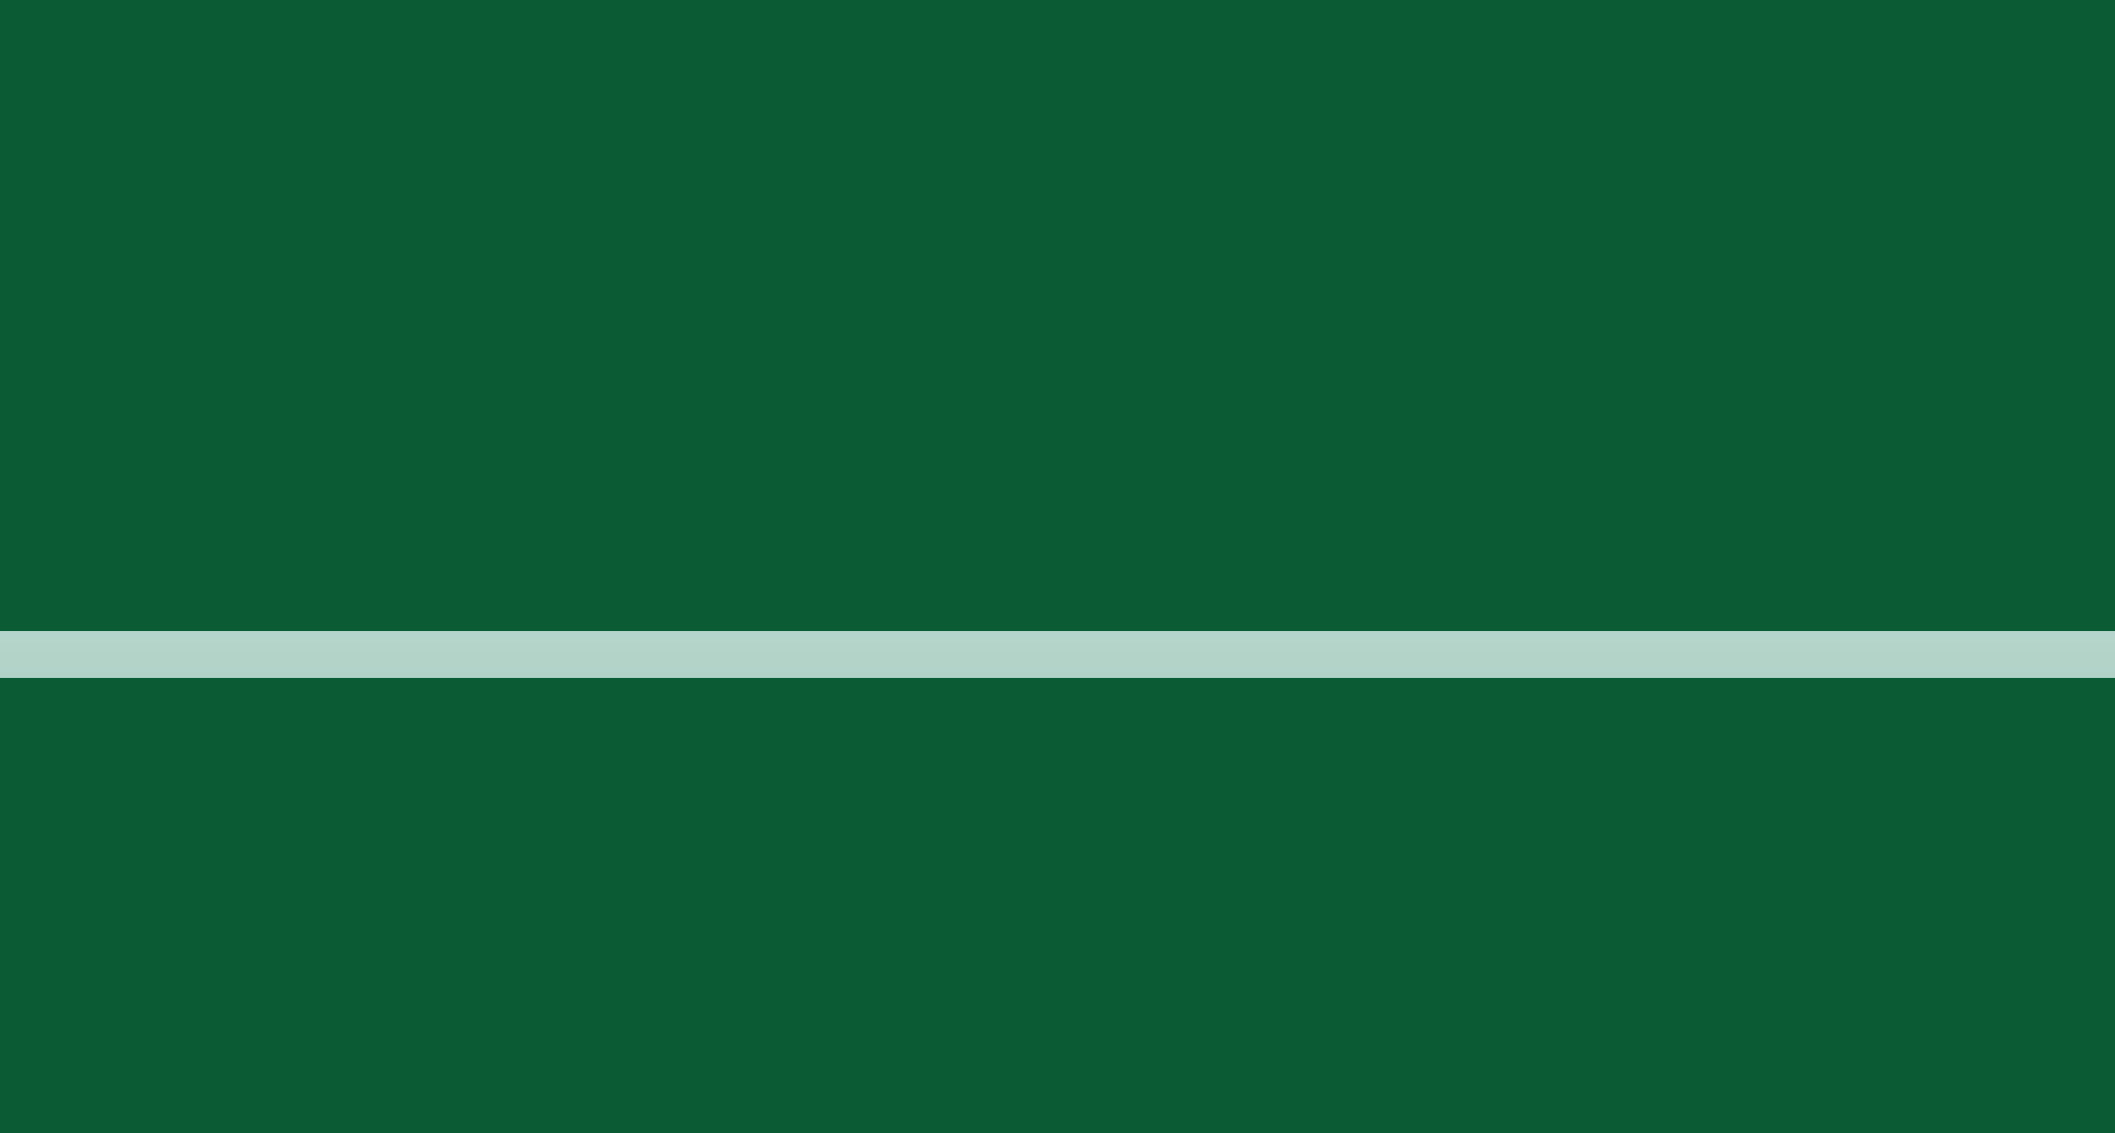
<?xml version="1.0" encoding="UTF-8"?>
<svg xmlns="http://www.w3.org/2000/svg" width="2115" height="1133">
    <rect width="100%" height="100%" fill="#0B5C35"/>
    <rect x="0" y="631" width="2115" height="47" fill="#9CC6B9"/>
    <image x="0" y="631" width="2115" height="47" href="img_01.png"/>
</svg>
